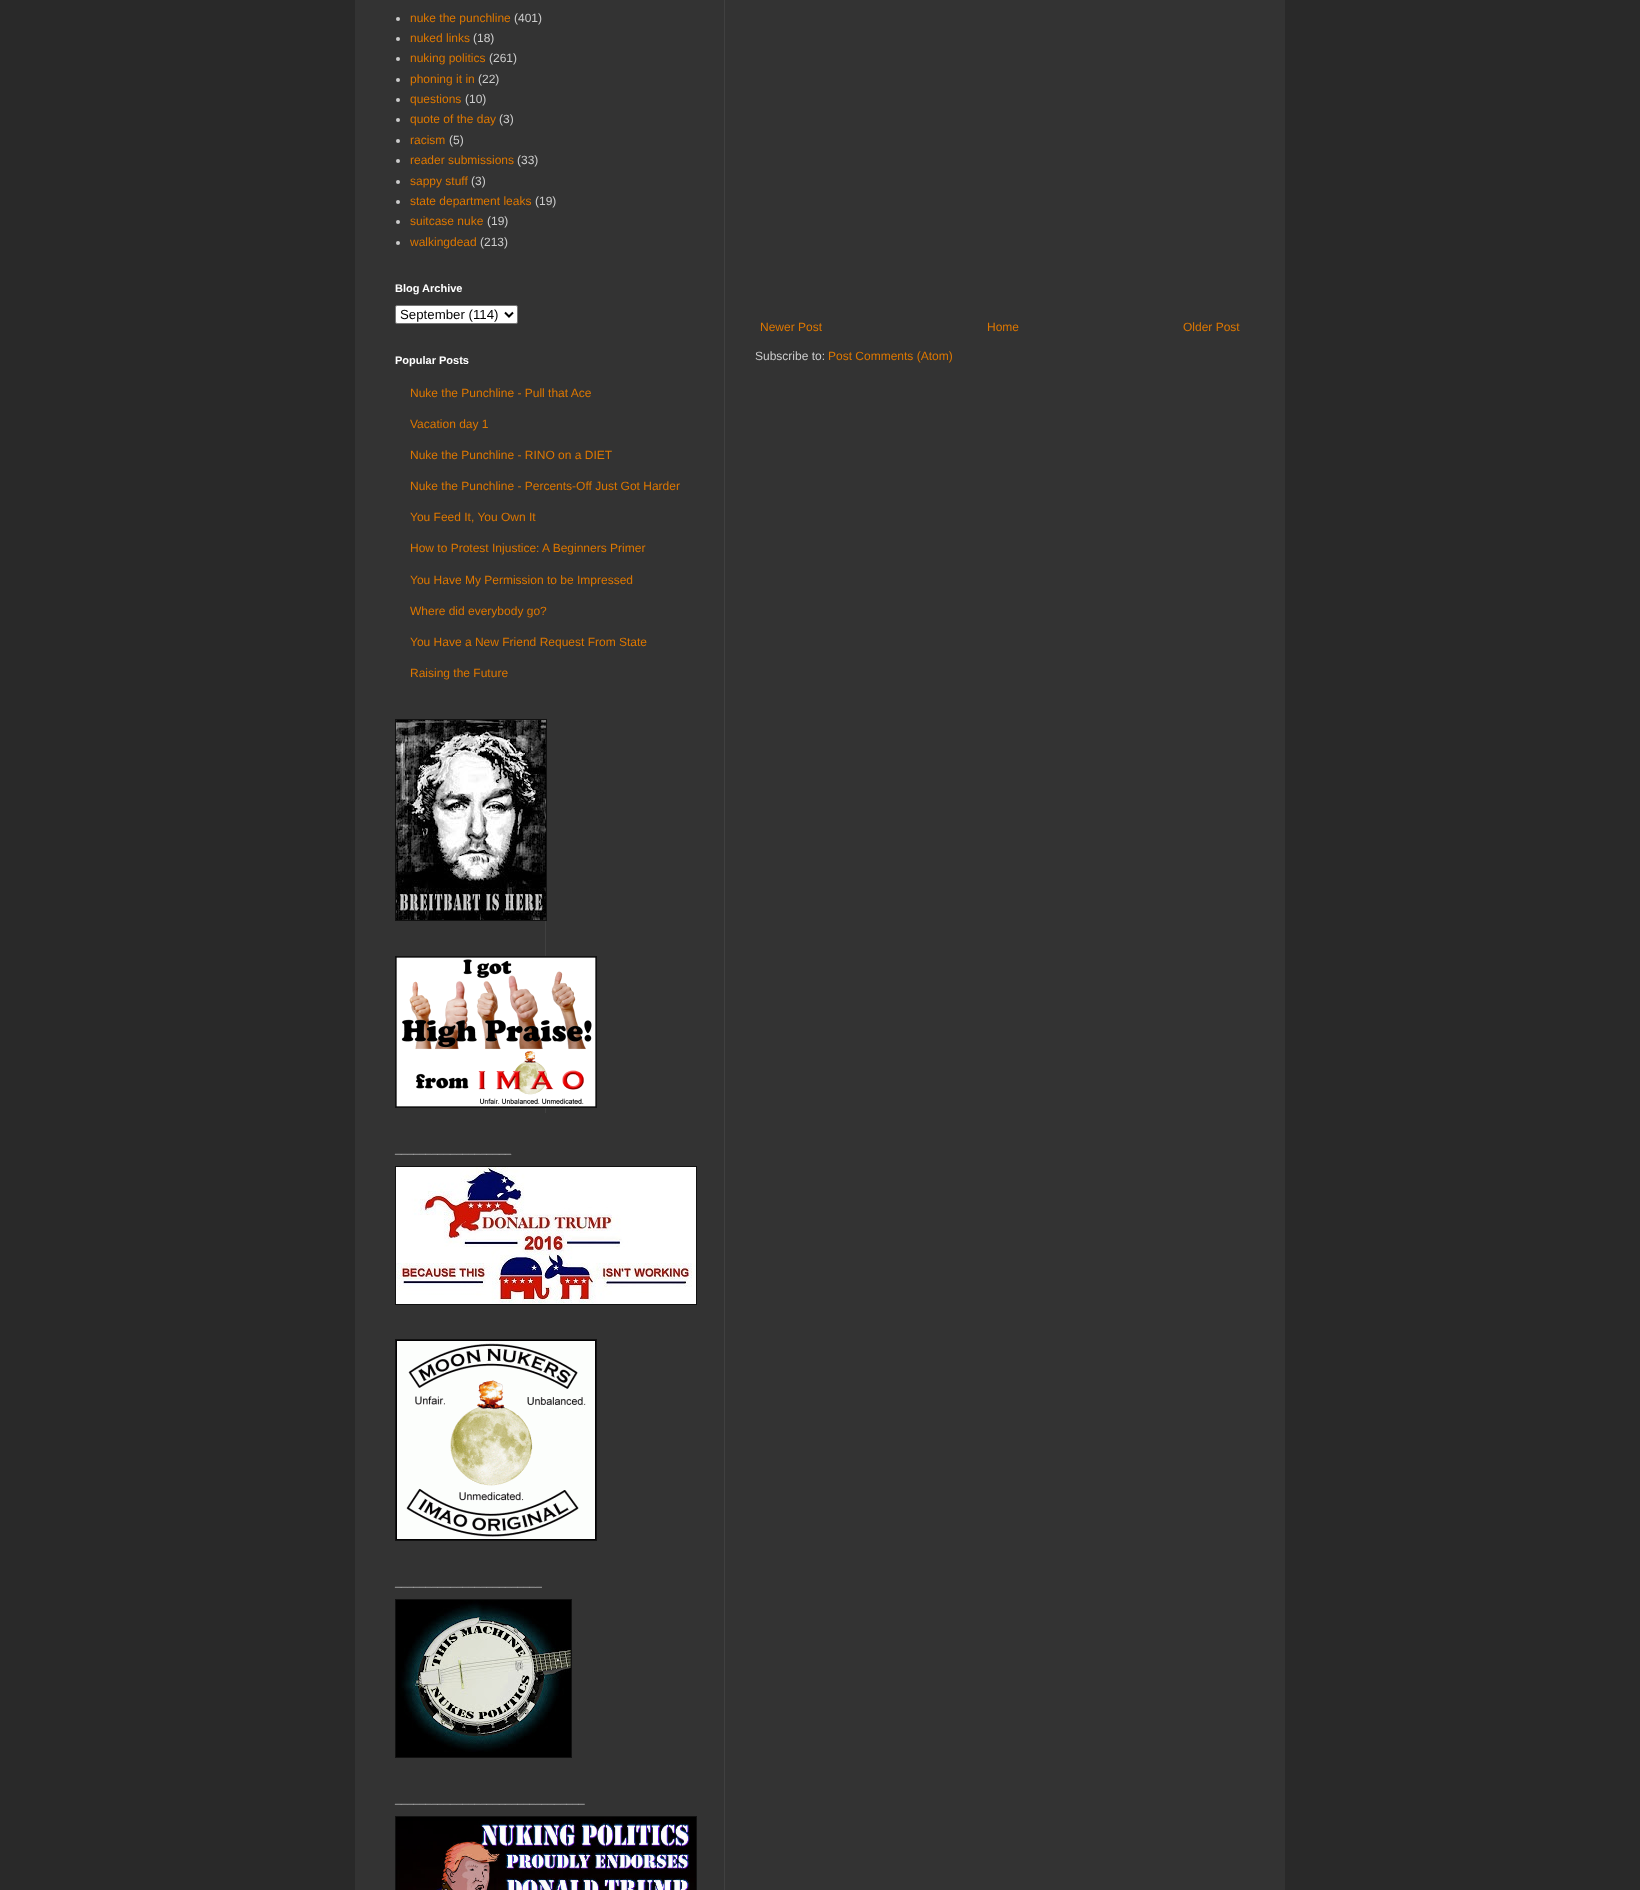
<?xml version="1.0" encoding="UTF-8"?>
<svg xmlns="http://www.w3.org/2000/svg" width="1640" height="1890">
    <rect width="100%" height="100%" fill="#292929"/>
    <rect x="355" y="0" width="930" height="1890" fill="#333333"/>
    <rect x="724" y="0" width="1" height="1890" fill="#404040"/>
    <circle cx="398" cy="19" r="2" fill="#CCCCCC"/>
    <text x="410" y="22" font-family="Liberation Sans" font-size="12" fill="#DD7700">nuke the punchline</text>
    <text x="514" y="22" font-family="Liberation Sans" font-size="12" fill="#CCCCCC">(401)</text>
    <circle cx="398" cy="39" r="2" fill="#CCCCCC"/>
    <text x="410" y="42" font-family="Liberation Sans" font-size="12" fill="#DD7700">nuked links</text>
    <text x="473" y="42" font-family="Liberation Sans" font-size="12" fill="#CCCCCC">(18)</text>
    <circle cx="398" cy="59" r="2" fill="#CCCCCC"/>
    <text x="410" y="62" font-family="Liberation Sans" font-size="12" fill="#DD7700">nuking politics</text>
    <text x="489" y="62" font-family="Liberation Sans" font-size="12" fill="#CCCCCC">(261)</text>
    <circle cx="398" cy="80" r="2" fill="#CCCCCC"/>
    <text x="410" y="83" font-family="Liberation Sans" font-size="12" fill="#DD7700">phoning it in</text>
    <text x="478" y="83" font-family="Liberation Sans" font-size="12" fill="#CCCCCC">(22)</text>
    <circle cx="398" cy="100" r="2" fill="#CCCCCC"/>
    <text x="410" y="103" font-family="Liberation Sans" font-size="12" fill="#DD7700">questions</text>
    <text x="465" y="103" font-family="Liberation Sans" font-size="12" fill="#CCCCCC">(10)</text>
    <circle cx="398" cy="120" r="2" fill="#CCCCCC"/>
    <text x="410" y="123" font-family="Liberation Sans" font-size="12" fill="#DD7700">quote of the day</text>
    <text x="499" y="123" font-family="Liberation Sans" font-size="12" fill="#CCCCCC">(3)</text>
    <circle cx="398" cy="141" r="2" fill="#CCCCCC"/>
    <text x="410" y="144" font-family="Liberation Sans" font-size="12" fill="#DD7700">racism</text>
    <text x="449" y="144" font-family="Liberation Sans" font-size="12" fill="#CCCCCC">(5)</text>
    <circle cx="398" cy="161" r="2" fill="#CCCCCC"/>
    <text x="410" y="164" font-family="Liberation Sans" font-size="12" fill="#DD7700">reader submissions</text>
    <text x="517" y="164" font-family="Liberation Sans" font-size="12" fill="#CCCCCC">(33)</text>
    <circle cx="398" cy="182" r="2" fill="#CCCCCC"/>
    <text x="410" y="185" font-family="Liberation Sans" font-size="12" fill="#DD7700">sappy stuff</text>
    <text x="471" y="185" font-family="Liberation Sans" font-size="12" fill="#CCCCCC">(3)</text>
    <circle cx="398" cy="202" r="2" fill="#CCCCCC"/>
    <text x="410" y="205" font-family="Liberation Sans" font-size="12" fill="#DD7700">state department leaks</text>
    <text x="535" y="205" font-family="Liberation Sans" font-size="12" fill="#CCCCCC">(19)</text>
    <circle cx="398" cy="222" r="2" fill="#CCCCCC"/>
    <text x="410" y="225" font-family="Liberation Sans" font-size="12" fill="#DD7700">suitcase nuke</text>
    <text x="487" y="225" font-family="Liberation Sans" font-size="12" fill="#CCCCCC">(19)</text>
    <circle cx="398" cy="243" r="2" fill="#CCCCCC"/>
    <text x="410" y="246" font-family="Liberation Sans" font-size="12" fill="#DD7700">walkingdead</text>
    <text x="480" y="246" font-family="Liberation Sans" font-size="12" fill="#CCCCCC">(213)</text>
    <text x="395" y="292" font-family="Liberation Sans" font-size="11" font-weight="700" fill="#FFFFFF">Blog Archive</text>
    <rect x="395.5" y="305.5" width="122" height="18" rx="1.5" fill="#FFFFFF" stroke="#767676"/>
    <path d="M 505 312.5 L 509 316.5 L 513 312.5" fill="none" stroke="#000000" stroke-width="2"/>
    <text x="400" y="319" font-family="Liberation Sans" font-size="13.25" fill="#000000">September (114)</text>
    <text x="395" y="364" font-family="Liberation Sans" font-size="11" font-weight="700" fill="#FFFFFF">Popular Posts</text>
    <text x="410" y="397" font-family="Liberation Sans" font-size="12" fill="#DD7700">Nuke the Punchline - Pull that Ace</text>
    <text x="410" y="428" font-family="Liberation Sans" font-size="12" fill="#DD7700">Vacation day 1</text>
    <text x="410" y="459" font-family="Liberation Sans" font-size="12" fill="#DD7700">Nuke the Punchline - RINO on a DIET</text>
    <text x="410" y="490" font-family="Liberation Sans" font-size="12" fill="#DD7700">Nuke the Punchline - Percents-Off Just Got Harder</text>
    <text x="410" y="521" font-family="Liberation Sans" font-size="12" fill="#DD7700">You Feed It, You Own It</text>
    <text x="410" y="552" font-family="Liberation Sans" font-size="12" fill="#DD7700">How to Protest Injustice:</text>
    <text x="542" y="552" font-family="Liberation Sans" font-size="12" fill="#DD7700">A Beginners Primer</text>
    <text x="410" y="584" font-family="Liberation Sans" font-size="12" fill="#DD7700">You Have My Permission to be Impressed</text>
    <text x="410" y="615" font-family="Liberation Sans" font-size="12" fill="#DD7700">Where did everybody go?</text>
    <text x="410" y="646" font-family="Liberation Sans" font-size="12" fill="#DD7700">You Have a New Friend Request From State</text>
    <text x="410" y="677" font-family="Liberation Sans" font-size="12" fill="#DD7700">Raising the Future</text>
    <rect x="395" y="719" width="152" height="202" fill="#111111"/>
    <image x="396" y="720" width="150" height="200" href="img_01.png"/>
    <rect x="545" y="921" width="1" height="192" fill="#404040"/>
    <rect x="395" y="956" width="202" height="152" fill="#111111"/>
    <image x="396" y="957" width="200" height="150" href="img_02.png"/>
    <text x="395" y="1153" font-family="Liberation Sans" font-size="11" font-weight="700" fill="#FFFFFF">___________________</text>
    <rect x="395" y="1166" width="302" height="139" fill="#111111"/>
    <image x="396" y="1167" width="300" height="137" href="img_03.png"/>
    <rect x="395" y="1339" width="202" height="202" fill="#111111"/>
    <image x="396" y="1340" width="200" height="200" href="img_04.png"/>
    <text x="395" y="1586" font-family="Liberation Sans" font-size="11" font-weight="700" fill="#FFFFFF">________________________</text>
    <rect x="395" y="1599" width="177" height="159" fill="#111111"/>
    <image x="396" y="1600" width="175" height="157" href="img_05.png"/>
    <text x="395" y="1803" font-family="Liberation Sans" font-size="11" font-weight="700" fill="#FFFFFF">_______________________________</text>
    <rect x="395" y="1816" width="302" height="74" fill="#111111"/>
    <image x="396" y="1817" width="300" height="73" href="img_06.png"/>
    <text x="760" y="331" font-family="Liberation Sans" font-size="12" fill="#DD7700">Newer Post</text>
    <text x="987" y="331" font-family="Liberation Sans" font-size="12" fill="#DD7700">Home</text>
    <text x="1183" y="331" font-family="Liberation Sans" font-size="12" fill="#DD7700">Older Post</text>
    <text x="755" y="360" font-family="Liberation Sans" font-size="12" fill="#CCCCCC">Subscribe to:</text>
    <text x="828" y="360" font-family="Liberation Sans" font-size="12" fill="#DD7700">Post Comments (Atom)</text>
</svg>
